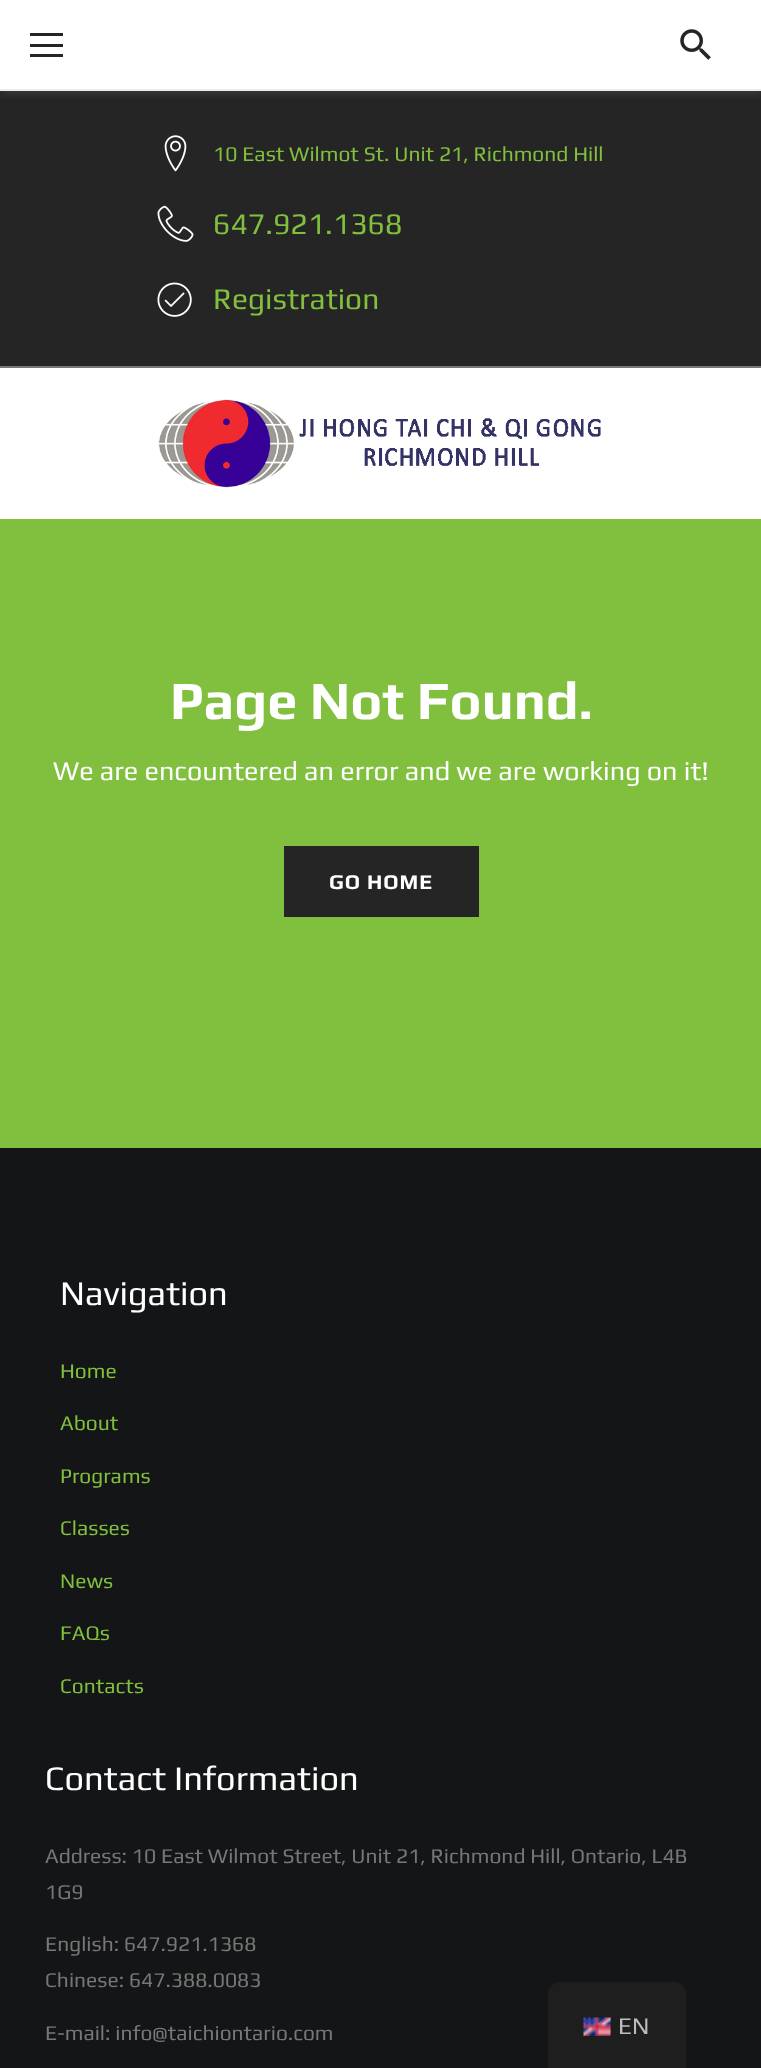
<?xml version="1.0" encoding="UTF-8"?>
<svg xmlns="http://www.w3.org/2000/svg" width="761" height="2068">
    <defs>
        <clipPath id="clip1"><rect x="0" y="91" width="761" height="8"/></clipPath>
        <filter id="blur1" x="-50%" y="-200%" width="200%" height="500%"><feGaussianBlur stdDeviation="4.5"/></filter>
    </defs>
    <rect width="100%" height="100%" fill="#FFFFFF"/>
    <rect x="0" y="91" width="761" height="275" fill="#252525"/>
    <g clip-path="url(#clip1)">
        <rect x="0" y="3" width="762" height="90" fill="#888888" fill-opacity="0.26" filter="url(#blur1)"/>
    </g>
    <rect x="0" y="89" width="761" height="2" fill="#ECECEE"/>
    <rect x="30" y="44" width="33" height="3" fill="#252525"/>
    <rect x="30" y="33" width="33" height="3" fill="#252525"/>
    <rect x="30" y="54" width="33" height="3" fill="#252525"/>
    <image x="680" y="29" width="31" height="31" href="img_01.png"/>
    <rect x="0" y="366" width="761" height="2" fill="#777777"/>
    <image x="164" y="135" width="23" height="37" href="img_02.png"/>
    <text x="213" y="161" font-family="Play" font-size="21" fill="#81BF3E">10 East Wilmot St. Unit 21, Richmond Hill</text>
    <image x="157" y="205" width="37" height="37" href="img_03.png"/>
    <text x="213" y="234" font-family="Play" font-size="30" fill="#81BF3E">647.921.1368</text>
    <image x="157" y="282" width="35" height="35" href="img_04.png"/>
    <text x="213" y="309" font-family="Play" font-size="30" fill="#81BF3E">Registration</text>
    <image x="158" y="399" width="443" height="89" href="img_05.png"/>
    <rect x="0" y="519" width="761" height="629" fill="#81BF3E"/>
    <text x="170" y="719" font-family="Play" font-size="54" font-weight="700" fill="#FFFFFF">Page Not Found.</text>
    <text x="53" y="780" font-family="Play" font-size="27" fill="#FFFFFF">We are encountered an error and we are working on it!</text>
    <rect x="284" y="846" width="195" height="71" fill="#252525"/>
    <text x="329" y="889" font-family="Play" font-size="21" font-weight="700" letter-spacing="1" fill="#FFFFFF">GO HOME</text>
    <rect x="0" y="1148" width="761" height="920" fill="#141516"/>
    <text x="60" y="1305" font-family="Play" font-size="34.5" fill="#FFFFFF">Navigation</text>
    <text x="60" y="1378" font-family="Play" font-size="21" fill="#81BF3E">Home</text>
    <text x="60" y="1430" font-family="Play" font-size="21" fill="#81BF3E">About</text>
    <text x="60" y="1483" font-family="Play" font-size="21" fill="#81BF3E">Programs</text>
    <text x="60" y="1535" font-family="Play" font-size="21" fill="#81BF3E">Classes</text>
    <text x="60" y="1588" font-family="Play" font-size="21" fill="#81BF3E">News</text>
    <text x="60" y="1640" font-family="Play" font-size="21" fill="#81BF3E">FAQs</text>
    <text x="60" y="1693" font-family="Play" font-size="21" fill="#81BF3E">Contacts</text>
    <text x="45" y="1790" font-family="Play" font-size="34.5" fill="#FFFFFF">Contact Information</text>
    <text font-family="Play" font-size="21" fill="#777777">
        <tspan x="45" y="1863">Address: 10 East Wilmot Street, Unit 21, Richmond Hill, Ontario, L4B</tspan>
        <tspan x="45" y="1899">1G9</tspan>
    </text>
    <text font-family="Play" font-size="21" fill="#777777">
        <tspan x="45" y="1951">English: 647.921.1368</tspan>
        <tspan x="45" y="1987">Chinese: 647.388.0083</tspan>
    </text>
    <text x="45" y="2040" font-family="Play" font-size="21" fill="#777777">E-mail: info@taichiontario.com</text>
    <path d="M 560 1982 H 674 C 680.5 1982 686 1987.5 686 1994 V 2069 H 548 V 1994 C 548 1987.5 553.5 1982 560 1982 Z" fill="#1E1E1E"/>
    <image x="583" y="2017" width="28" height="19" href="img_06.png"/>
    <text x="618" y="2034" font-family="Play" font-size="24" fill="#BDBDBD">EN</text>
</svg>
